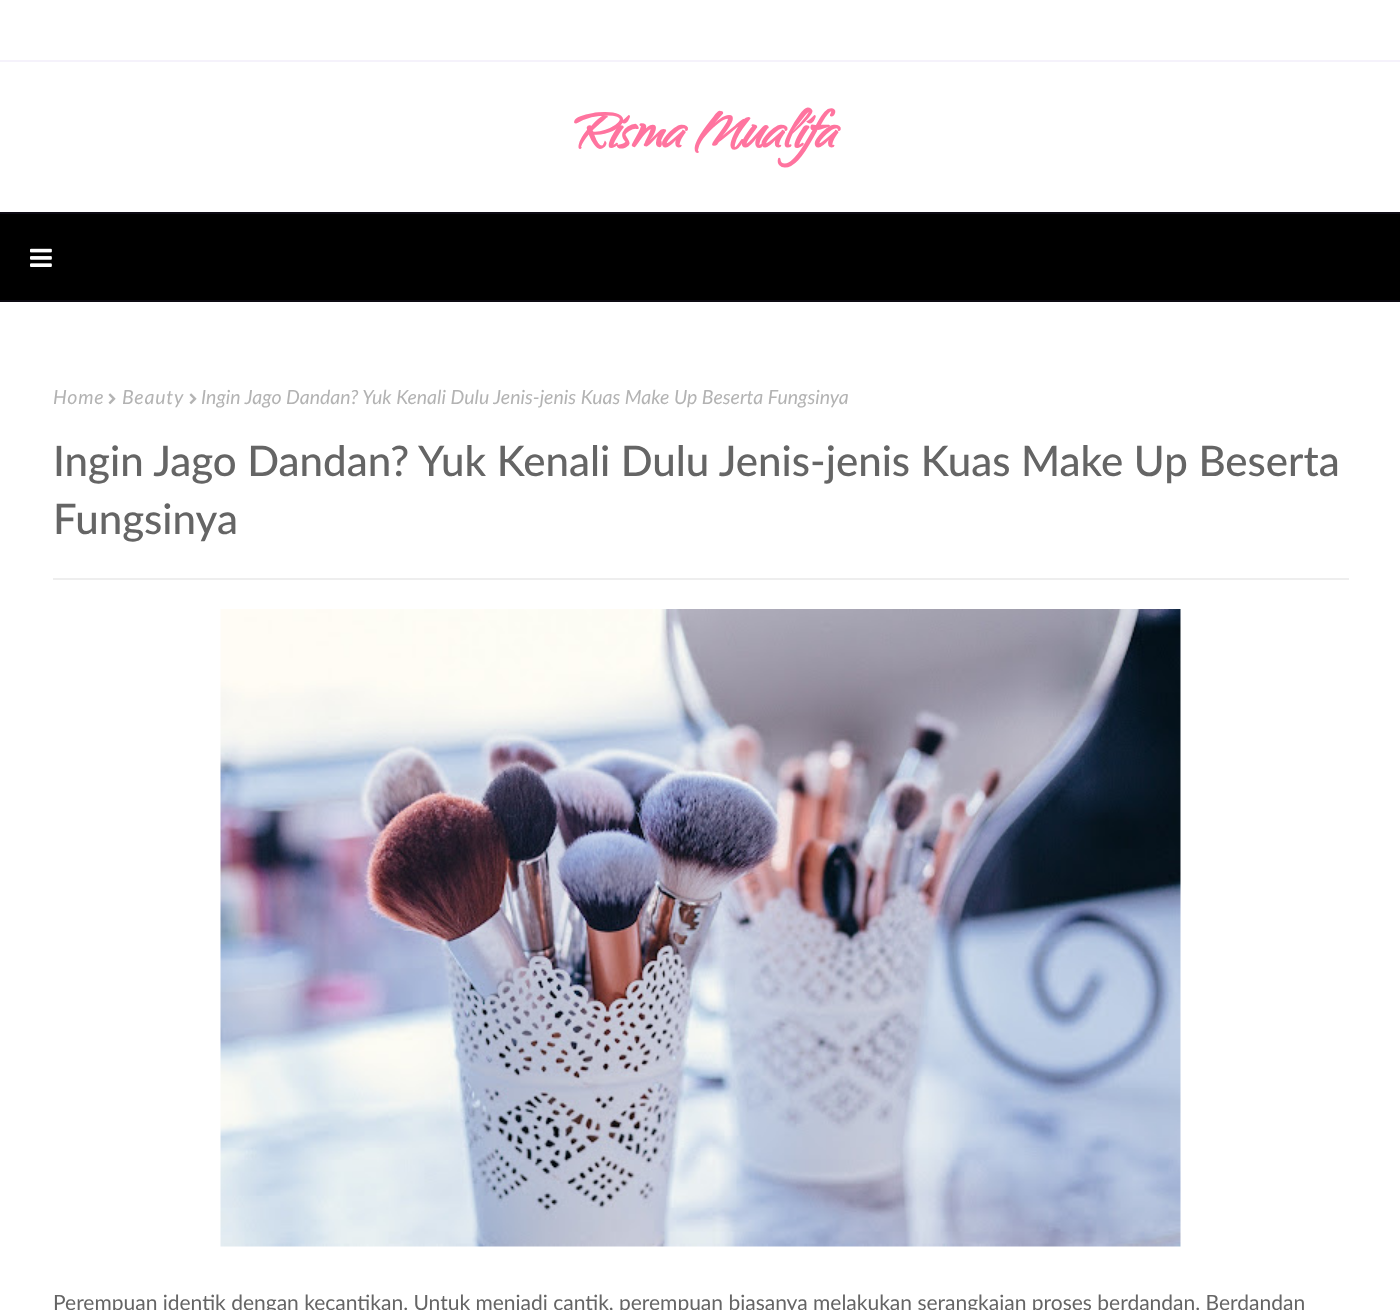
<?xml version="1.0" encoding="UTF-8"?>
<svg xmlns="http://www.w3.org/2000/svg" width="1400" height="1310">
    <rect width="100%" height="100%" fill="#FFFFFF"/>
    <rect x="0" y="60" width="1400" height="2" fill="#F5F2FB"/>
    <text x="568" y="147" font-family="Qwigley" font-size="67.5" font-weight="700" font-style="italic" fill="#FF749F">Risma Mualifa</text>
    <rect x="0" y="214" width="1400" height="86" fill="#000000"/>
    <rect x="0" y="212" width="1400" height="2" fill="#0D0A13"/>
    <rect x="0" y="300" width="1400" height="2" fill="#0D0A13"/>
    <image x="30" y="248" width="22" height="19" href="img_01.png"/>
    <text x="53" y="404" font-family="Lato" font-size="19.5" font-style="italic" letter-spacing="0.75" fill="#B3B3B3">Home</text>
    <image x="108" y="393" width="8" height="12" href="img_02.png"/>
    <text x="122" y="404" font-family="Lato" font-size="19.5" font-style="italic" letter-spacing="0.75" fill="#B3B3B3">Beauty</text>
    <image x="189" y="393" width="8" height="12" href="img_02.png"/>
    <text x="201" y="404" font-family="Lato" font-size="19.5" font-style="italic" fill="#B3B3B3">Ingin Jago Dandan? Yuk Kenali Dulu Jenis-jenis Kuas Make Up Beserta Fungsinya</text>
    <text font-family="Lato" font-size="42" font-weight="500" fill="#656565">
        <tspan x="53" y="476">Ingin Jago Dandan? Yuk Kenali Dulu Jenis-jenis Kuas Make Up Beserta</tspan>
        <tspan x="53" y="534">Fungsinya</tspan>
    </text>
    <rect x="53" y="578" width="1296" height="2" fill="#EEEEEE"/>
    <image x="220" y="609" width="961" height="638" href="img_03.png"/>
    <text x="53" y="1310" font-family="Lato" font-size="21" fill="#656565">Perempuan identik dengan kecantikan. Untuk menjadi cantik, perempuan biasanya melakukan serangkaian proses berdandan. Berdandan</text>
</svg>
